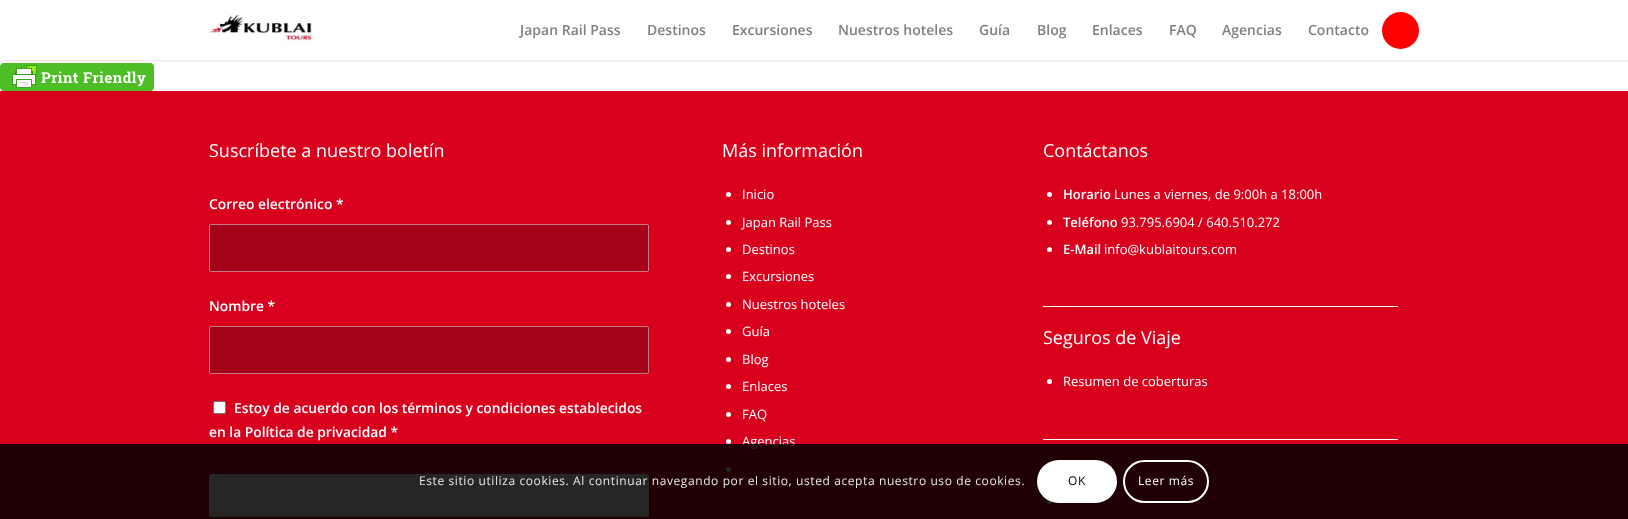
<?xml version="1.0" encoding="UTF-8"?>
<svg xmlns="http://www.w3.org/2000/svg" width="1628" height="519">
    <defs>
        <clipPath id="clip1"><rect x="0" y="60" width="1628" height="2"/></clipPath>
        <filter id="blur1" x="-50%" y="-200%" width="200%" height="500%"><feGaussianBlur stdDeviation="1"/></filter>
    </defs>
    <rect width="100%" height="100%" fill="#FFFFFF"/>
    <g clip-path="url(#clip1)">
        <rect x="-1" y="-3" width="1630" height="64" fill="#000000" fill-opacity="0.1" filter="url(#blur1)"/>
    </g>
    <image x="209" y="15" width="105" height="28" href="img_01.png"/>
    <text x="520" y="35" font-family="Open Sans" font-size="14" font-weight="600" fill="#808080">Japan Rail Pass</text>
    <text x="647" y="35" font-family="Open Sans" font-size="14" font-weight="600" fill="#808080">Destinos</text>
    <text x="732" y="35" font-family="Open Sans" font-size="14" font-weight="600" fill="#808080">Excursiones</text>
    <text x="838" y="35" font-family="Open Sans" font-size="14" font-weight="600" fill="#808080">Nuestros hoteles</text>
    <text x="979" y="35" font-family="Open Sans" font-size="14" font-weight="600" fill="#808080">Guía</text>
    <text x="1037" y="35" font-family="Open Sans" font-size="14" font-weight="600" fill="#808080">Blog</text>
    <text x="1092" y="35" font-family="Open Sans" font-size="14" font-weight="600" fill="#808080">Enlaces</text>
    <text x="1169" y="35" font-family="Open Sans" font-size="14" font-weight="600" fill="#808080">FAQ</text>
    <text x="1222" y="35" font-family="Open Sans" font-size="14" font-weight="600" fill="#808080">Agencias</text>
    <text x="1308" y="35" font-family="Open Sans" font-size="14" font-weight="600" fill="#808080">Contacto</text>
    <circle cx="1400.5" cy="30.5" r="18.5" fill="#FF0000"/>
    <image x="0" y="63" width="154" height="28" href="img_02.png"/>
    <rect x="0" y="91" width="1628" height="428" fill="#D8001D"/>
    <text x="209" y="157" font-family="Open Sans" font-size="18" fill="#FFFFFF">Suscríbete a nuestro boletín</text>
    <text x="209" y="209" font-family="Open Sans" font-size="13.8" font-weight="600" fill="#FFFFFF">Correo electrónico *</text>
    <rect x="209.5" y="224.5" width="439" height="47" rx="1.5" fill="#A40419" stroke="#C57882"/>
    <text x="209" y="311" font-family="Open Sans" font-size="13.8" font-weight="600" fill="#FFFFFF">Nombre *</text>
    <rect x="209.5" y="326.5" width="439" height="47" rx="1.5" fill="#A40419" stroke="#C57882"/>
    <rect x="213.5" y="401.5" width="12" height="12" rx="1.5" fill="#FFFFFF" stroke="#767676"/>
    <text x="234" y="413" font-family="Open Sans" font-size="13.8" font-weight="600" fill="#FFFFFF">Estoy de acuerdo con los términos y condiciones establecidos</text>
    <text x="209" y="437" font-family="Open Sans" font-size="13.8" font-weight="600" fill="#FFFFFF">en la Política de privacidad *</text>
    <rect x="209" y="474" width="440" height="43" rx="2" fill="#FFFFFF"/>
    <rect x="210" y="516" width="438" height="1" fill="#DDDDDD"/>
    <text x="722" y="157" font-family="Open Sans" font-size="18" fill="#FFFFFF">Más información</text>
    <circle cx="728.5" cy="194.5" r="2.5" fill="#FFFFFF"/>
    <text x="742" y="199" font-family="Open Sans" font-size="13" fill="#FFFFFF">Inicio</text>
    <circle cx="728.5" cy="222.5" r="2.5" fill="#FFFFFF"/>
    <text x="742" y="227" font-family="Open Sans" font-size="13" fill="#FFFFFF">Japan Rail Pass</text>
    <circle cx="728.5" cy="249.5" r="2.5" fill="#FFFFFF"/>
    <text x="742" y="254" font-family="Open Sans" font-size="13" fill="#FFFFFF">Destinos</text>
    <circle cx="728.5" cy="276.5" r="2.5" fill="#FFFFFF"/>
    <text x="742" y="281" font-family="Open Sans" font-size="13" fill="#FFFFFF">Excursiones</text>
    <circle cx="728.5" cy="304.5" r="2.5" fill="#FFFFFF"/>
    <text x="742" y="309" font-family="Open Sans" font-size="13" fill="#FFFFFF">Nuestros hoteles</text>
    <circle cx="728.5" cy="331.5" r="2.5" fill="#FFFFFF"/>
    <text x="742" y="336" font-family="Open Sans" font-size="13" fill="#FFFFFF">Guía</text>
    <circle cx="728.5" cy="359.5" r="2.5" fill="#FFFFFF"/>
    <text x="742" y="364" font-family="Open Sans" font-size="13" fill="#FFFFFF">Blog</text>
    <circle cx="728.5" cy="386.5" r="2.5" fill="#FFFFFF"/>
    <text x="742" y="391" font-family="Open Sans" font-size="13" fill="#FFFFFF">Enlaces</text>
    <circle cx="728.5" cy="414.5" r="2.5" fill="#FFFFFF"/>
    <text x="742" y="419" font-family="Open Sans" font-size="13" fill="#FFFFFF">FAQ</text>
    <circle cx="728.5" cy="441.5" r="2.5" fill="#FFFFFF"/>
    <text x="742" y="446" font-family="Open Sans" font-size="13" fill="#FFFFFF">Agencias</text>
    <circle cx="728.5" cy="469.5" r="2.5" fill="#FFFFFF"/>
    <text x="1043" y="157" font-family="Open Sans" font-size="18" fill="#FFFFFF">Contáctanos</text>
    <circle cx="1049.5" cy="194.5" r="2.5" fill="#FFFFFF"/>
    <text x="1063" y="199" font-family="Open Sans" font-size="13" font-weight="600" fill="#FFFFFF">Horario</text>
    <text x="1114" y="199" font-family="Open Sans" font-size="13" fill="#FFFFFF">Lunes a viernes, de 9:00h a 18:00h</text>
    <circle cx="1049.5" cy="222.5" r="2.5" fill="#FFFFFF"/>
    <text x="1063" y="227" font-family="Open Sans" font-size="13" font-weight="600" fill="#FFFFFF">Teléfono</text>
    <text x="1121" y="227" font-family="Open Sans" font-size="13" fill="#FFFFFF">93.795.6904 / 640.510.272</text>
    <circle cx="1049.5" cy="249.5" r="2.5" fill="#FFFFFF"/>
    <text x="1063" y="254" font-family="Open Sans" font-size="13" font-weight="600" fill="#FFFFFF">E-Mail</text>
    <text x="1104" y="254" font-family="Open Sans" font-size="13" fill="#FFFFFF">info@kublaitours.com</text>
    <rect x="1043" y="306" width="355" height="1" fill="#FFFFFF"/>
    <text x="1043" y="344" font-family="Open Sans" font-size="18" fill="#FFFFFF">Seguros de Viaje</text>
    <circle cx="1049.5" cy="381.5" r="2.5" fill="#FFFFFF"/>
    <text x="1063" y="386" font-family="Open Sans" font-size="13" fill="#FFFFFF">Resumen de coberturas</text>
    <rect x="1043" y="439" width="355" height="1" fill="#FFFFFF"/>
    <circle cx="1049.5" cy="501.5" r="2.5" fill="#FFFFFF"/>
    <rect x="0" y="444" width="1628" height="75" fill="#000000" fill-opacity="0.85"/>
    <text x="419" y="485" font-family="Open Sans" font-size="12" letter-spacing="0.6" fill="#E9E7E7">Este sitio utiliza cookies. Al continuar navegando por el sitio, usted acepta nuestro uso de cookies.</text>
    <rect x="1037" y="460" width="80" height="43" rx="21.5" fill="#FFFFFF"/>
    <text x="1068" y="485" font-family="Open Sans" font-size="12" letter-spacing="0.6" fill="#000000">OK</text>
    <rect x="1124" y="461" width="84" height="41" rx="20.5" fill="none" stroke="#FFFFFF" stroke-width="2"/>
    <text x="1138" y="485" font-family="Open Sans" font-size="12" letter-spacing="0.6" fill="#FFFFFF">Leer más</text>
</svg>
